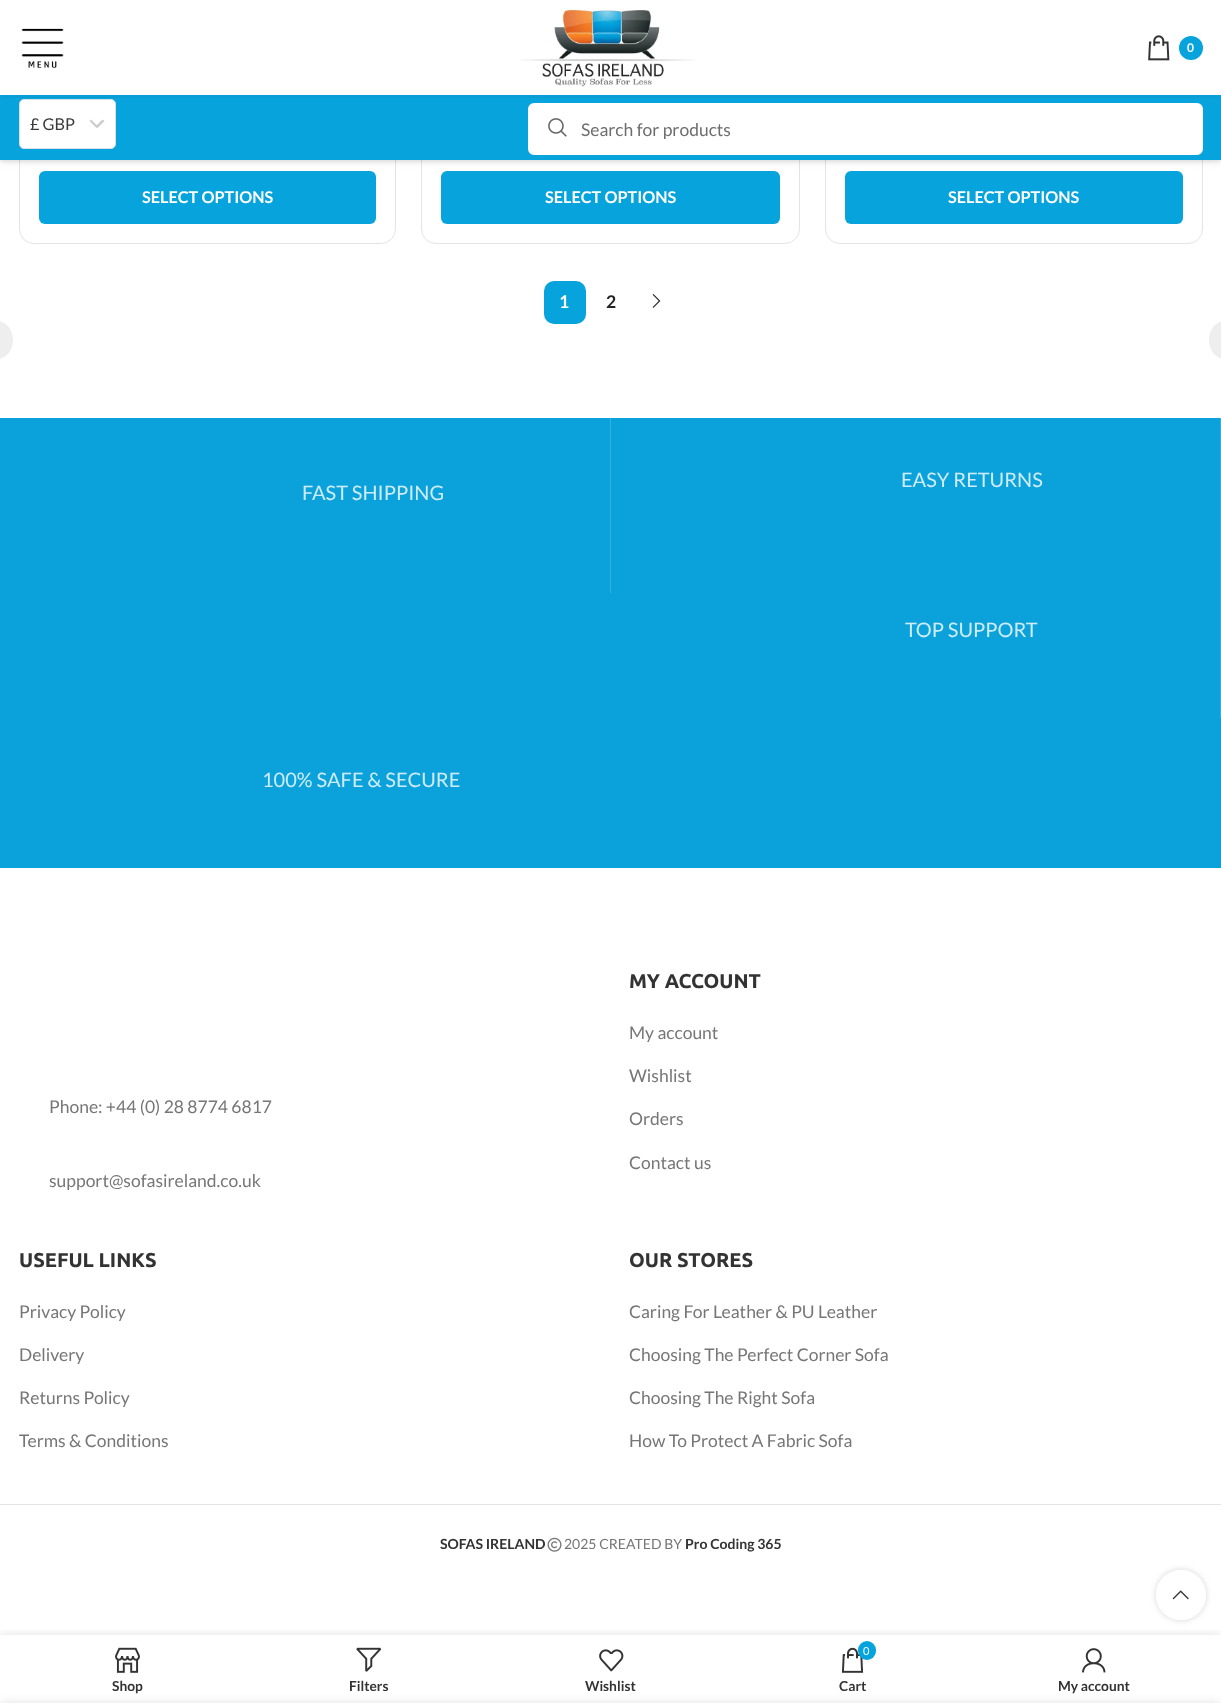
<?xml version="1.0" encoding="UTF-8"?>
<svg xmlns="http://www.w3.org/2000/svg" width="1221" height="1703">
    <defs>
        <filter id="blur1" x="-50%" y="-200%" width="200%" height="500%"><feGaussianBlur stdDeviation="2"/></filter>
        <filter id="blur2" x="-50%" y="-200%" width="200%" height="500%"><feGaussianBlur stdDeviation="5"/></filter>
        <clipPath id="clip1"><path d="M 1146 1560 H 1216 V 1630 H 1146 Z M 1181 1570 C 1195 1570 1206 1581 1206 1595 C 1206 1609 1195 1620 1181 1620 C 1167 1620 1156 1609 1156 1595 C 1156 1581 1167 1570 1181 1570 Z" clip-rule="evenodd"/></clipPath>
        <filter id="blur3" x="-50%" y="-200%" width="200%" height="500%"><feGaussianBlur stdDeviation="3"/></filter>
        <clipPath id="clip2"><rect x="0" y="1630" width="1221" height="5"/></clipPath>
        <filter id="blur4" x="-50%" y="-200%" width="200%" height="500%"><feGaussianBlur stdDeviation="5.5"/></filter>
    </defs>
    <rect width="100%" height="100%" fill="#FFFFFF"/>
    <rect x="19.5" y="-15.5" width="376" height="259" rx="14.5" fill="none" stroke="#E4E4E4"/>
    <rect x="421.5" y="-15.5" width="378" height="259" rx="14.5" fill="none" stroke="#E4E4E4"/>
    <rect x="825.5" y="-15.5" width="377" height="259" rx="14.5" fill="none" stroke="#E4E4E4"/>
    <rect x="0" y="1" width="1221" height="160" fill="#000000" fill-opacity="0.1" filter="url(#blur1)"/>
    <rect x="0" y="0" width="1221" height="95" fill="#FFFFFF"/>
    <rect x="0" y="95" width="1221" height="3" fill="#07A3DC"/>
    <image x="21" y="28" width="43" height="41" href="img_01.png"/>
    <rect x="39" y="171" width="337" height="53" rx="6" fill="#07A3DC"/>
    <rect x="441" y="171" width="339" height="53" rx="6" fill="#07A3DC"/>
    <rect x="845" y="171" width="338" height="53" rx="6" fill="#07A3DC"/>
    <rect x="0" y="99" width="1221" height="62" fill="#000000" fill-opacity="0.1" filter="url(#blur2)"/>
    <image x="520" y="10" width="175" height="77" href="img_02.png"/>
    <image x="1148" y="35" width="22" height="26" href="img_03.png"/>
    <circle cx="1191" cy="48" r="12" fill="#07A3DC"/>
    <text x="1187" y="52" font-family="Lato" font-size="12" font-weight="700" fill="#FFFFFF">0</text>
    <rect x="0" y="98" width="1221" height="62" fill="#07A3DC"/>
    <rect x="19.5" y="99.5" width="96" height="49" rx="4.5" fill="#FFFFFF" stroke="#DCDFE6"/>
    <text x="30" y="130" font-family="Lato" font-size="16.25" fill="#3B3B3B">£ GBP</text>
    <path d="M 89.5 121 L 91 119.5 L 98 126.5 L 96.5 128 Z" fill="#CCCCCC"/>
    <path d="M 102.5 119.5 L 104.5 121 L 97.5 128 L 95.5 126.5 Z" fill="#CCCCCC"/>
    <rect x="529.5" y="104.5" width="672" height="49" rx="4.5" fill="#FFFFFF" stroke="#FFFFFF" stroke-width="3"/>
    <image x="548" y="118" width="19" height="19" href="img_04.png"/>
    <text x="581" y="136" font-family="Lato" font-size="17.5" fill="#6D6D6D">Search for products</text>
    <text x="142" y="203" font-family="Lato" font-size="16.25" font-weight="700" fill="#FFFFFF">SELECT OPTIONS</text>
    <text x="545" y="203" font-family="Lato" font-size="16.25" font-weight="700" fill="#FFFFFF">SELECT OPTIONS</text>
    <text x="948" y="203" font-family="Lato" font-size="16.25" font-weight="700" fill="#FFFFFF">SELECT OPTIONS</text>
    <rect x="544" y="281" width="42" height="43" rx="10" fill="#07A3DC"/>
    <text x="559" y="308" font-family="Lato" font-size="17.5" font-weight="700" fill="#FFFFFF">1</text>
    <text x="606" y="308" font-family="Lato" font-size="17.5" font-weight="700" fill="#242424">2</text>
    <image x="652" y="294" width="9" height="14" href="img_05.png"/>
    <rect x="-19" y="321" width="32" height="38" rx="19" fill="#EEEEEE"/>
    <rect x="1209" y="321" width="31" height="38" rx="18.5" fill="#EEEEEE"/>
    <rect x="0" y="418" width="1221" height="450" fill="#0BA2DC"/>
    <rect x="1220" y="418" width="1" height="300" fill="#30B0E1"/>
    <text x="901" y="487" font-family="Lato" font-size="20" fill="#CEECF8">EASY RETURNS</text>
    <rect x="610" y="418" width="1" height="175" fill="#30B0E1"/>
    <text x="302" y="500" font-family="Lato" font-size="20" fill="#CEECF8">FAST SHIPPING</text>
    <text x="905" y="637" font-family="Lato" font-size="20" fill="#CEECF8">TOP SUPPORT</text>
    <text x="262" y="787" font-family="Lato" font-size="20" fill="#CEECF8">100% SAFE &amp; SECURE</text>
    <text x="49" y="1113" font-family="Lato" font-size="17.5" fill="#767676">Phone: +44 (0) 28 8774 6817</text>
    <text x="49" y="1187" font-family="Lato" font-size="17.5" fill="#767676">support@sofasireland.co.uk</text>
    <text x="629" y="988" font-family="Ubuntu" font-size="20" font-weight="700" fill="#333333">MY ACCOUNT</text>
    <text x="629" y="1039" font-family="Lato" font-size="17.5" fill="#767676">My account</text>
    <text x="629" y="1082" font-family="Lato" font-size="17.5" fill="#767676">Wishlist</text>
    <text x="629" y="1125" font-family="Lato" font-size="17.5" fill="#767676">Orders</text>
    <text x="629" y="1169" font-family="Lato" font-size="17.5" fill="#767676">Contact us</text>
    <text x="19" y="1267" font-family="Ubuntu" font-size="20" font-weight="700" fill="#333333">USEFUL LINKS</text>
    <text x="19" y="1318" font-family="Lato" font-size="17.5" fill="#767676">Privacy Policy</text>
    <text x="19" y="1361" font-family="Lato" font-size="17.5" fill="#767676">Delivery</text>
    <text x="19" y="1404" font-family="Lato" font-size="17.5" fill="#767676">Returns Policy</text>
    <text x="19" y="1447" font-family="Lato" font-size="17.5" fill="#767676">Terms &amp; Conditions</text>
    <text x="629" y="1267" font-family="Ubuntu" font-size="20" font-weight="700" fill="#333333">OUR STORES</text>
    <text x="629" y="1318" font-family="Lato" font-size="17.5" fill="#767676">Caring For Leather &amp; PU Leather</text>
    <text x="629" y="1361" font-family="Lato" font-size="17.5" fill="#767676">Choosing The Perfect Corner Sofa</text>
    <text x="629" y="1404" font-family="Lato" font-size="17.5" fill="#767676">Choosing The Right Sofa</text>
    <text x="629" y="1447" font-family="Lato" font-size="17.5" fill="#767676">How To Protect A Fabric Sofa</text>
    <rect x="0" y="1504" width="1221" height="1" fill="#E4E4E4"/>
    <text x="440" y="1549" font-family="Lato" font-size="14" font-weight="700" fill="#333333">SOFAS IRELAND</text>
    <image x="547" y="1537" width="15" height="15" href="img_06.png"/>
    <text x="564" y="1549" font-family="Lato" font-size="14" fill="#767676">2025 CREATED BY</text>
    <text x="685" y="1549" font-family="Lato" font-size="14" font-weight="700" fill="#333333">Pro Coding 365</text>
    <g clip-path="url(#clip1)">
        <rect x="1156" y="1570" width="50" height="50" rx="25" fill="#000000" fill-opacity="0.17" filter="url(#blur3)"/>
    </g>
    <circle cx="1181" cy="1595" r="25" fill="#FFFFFF" fill-opacity="0.9"/>
    <image x="1172" y="1590" width="17" height="10" href="img_07.png"/>
    <g clip-path="url(#clip2)">
        <rect x="0" y="1635" width="1221" height="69" fill="#000000" fill-opacity="0.12" filter="url(#blur4)"/>
    </g>
    <image x="115" y="1647" width="25" height="26" href="img_08.png"/>
    <text x="112" y="1691" font-family="Lato" font-size="13.75" font-weight="700" fill="#333333">Shop</text>
    <image x="356" y="1647" width="26" height="25" href="img_09.png"/>
    <text x="349" y="1691" font-family="Lato" font-size="13.75" font-weight="700" fill="#333333">Filters</text>
    <image x="599" y="1649" width="25" height="23" href="img_10.png"/>
    <text x="585" y="1691" font-family="Lato" font-size="13.75" font-weight="700" fill="#333333">Wishlist</text>
    <image x="841" y="1647" width="23" height="26" href="img_11.png"/>
    <rect x="858" y="1641" width="18" height="19" rx="9" fill="#07A3DC"/>
    <text x="863" y="1655" font-family="Lato" font-size="11" fill="#FFFFFF">0</text>
    <text x="839" y="1691" font-family="Lato" font-size="13.75" font-weight="700" fill="#333333">Cart</text>
    <image x="1082" y="1648" width="24" height="25" href="img_12.png"/>
    <text x="1058" y="1691" font-family="Lato" font-size="13.75" font-weight="700" fill="#333333">My account</text>
    <rect x="0" y="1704" width="1221" height="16" fill="#000000" fill-opacity="0.14" filter="url(#blur4)"/>
</svg>
